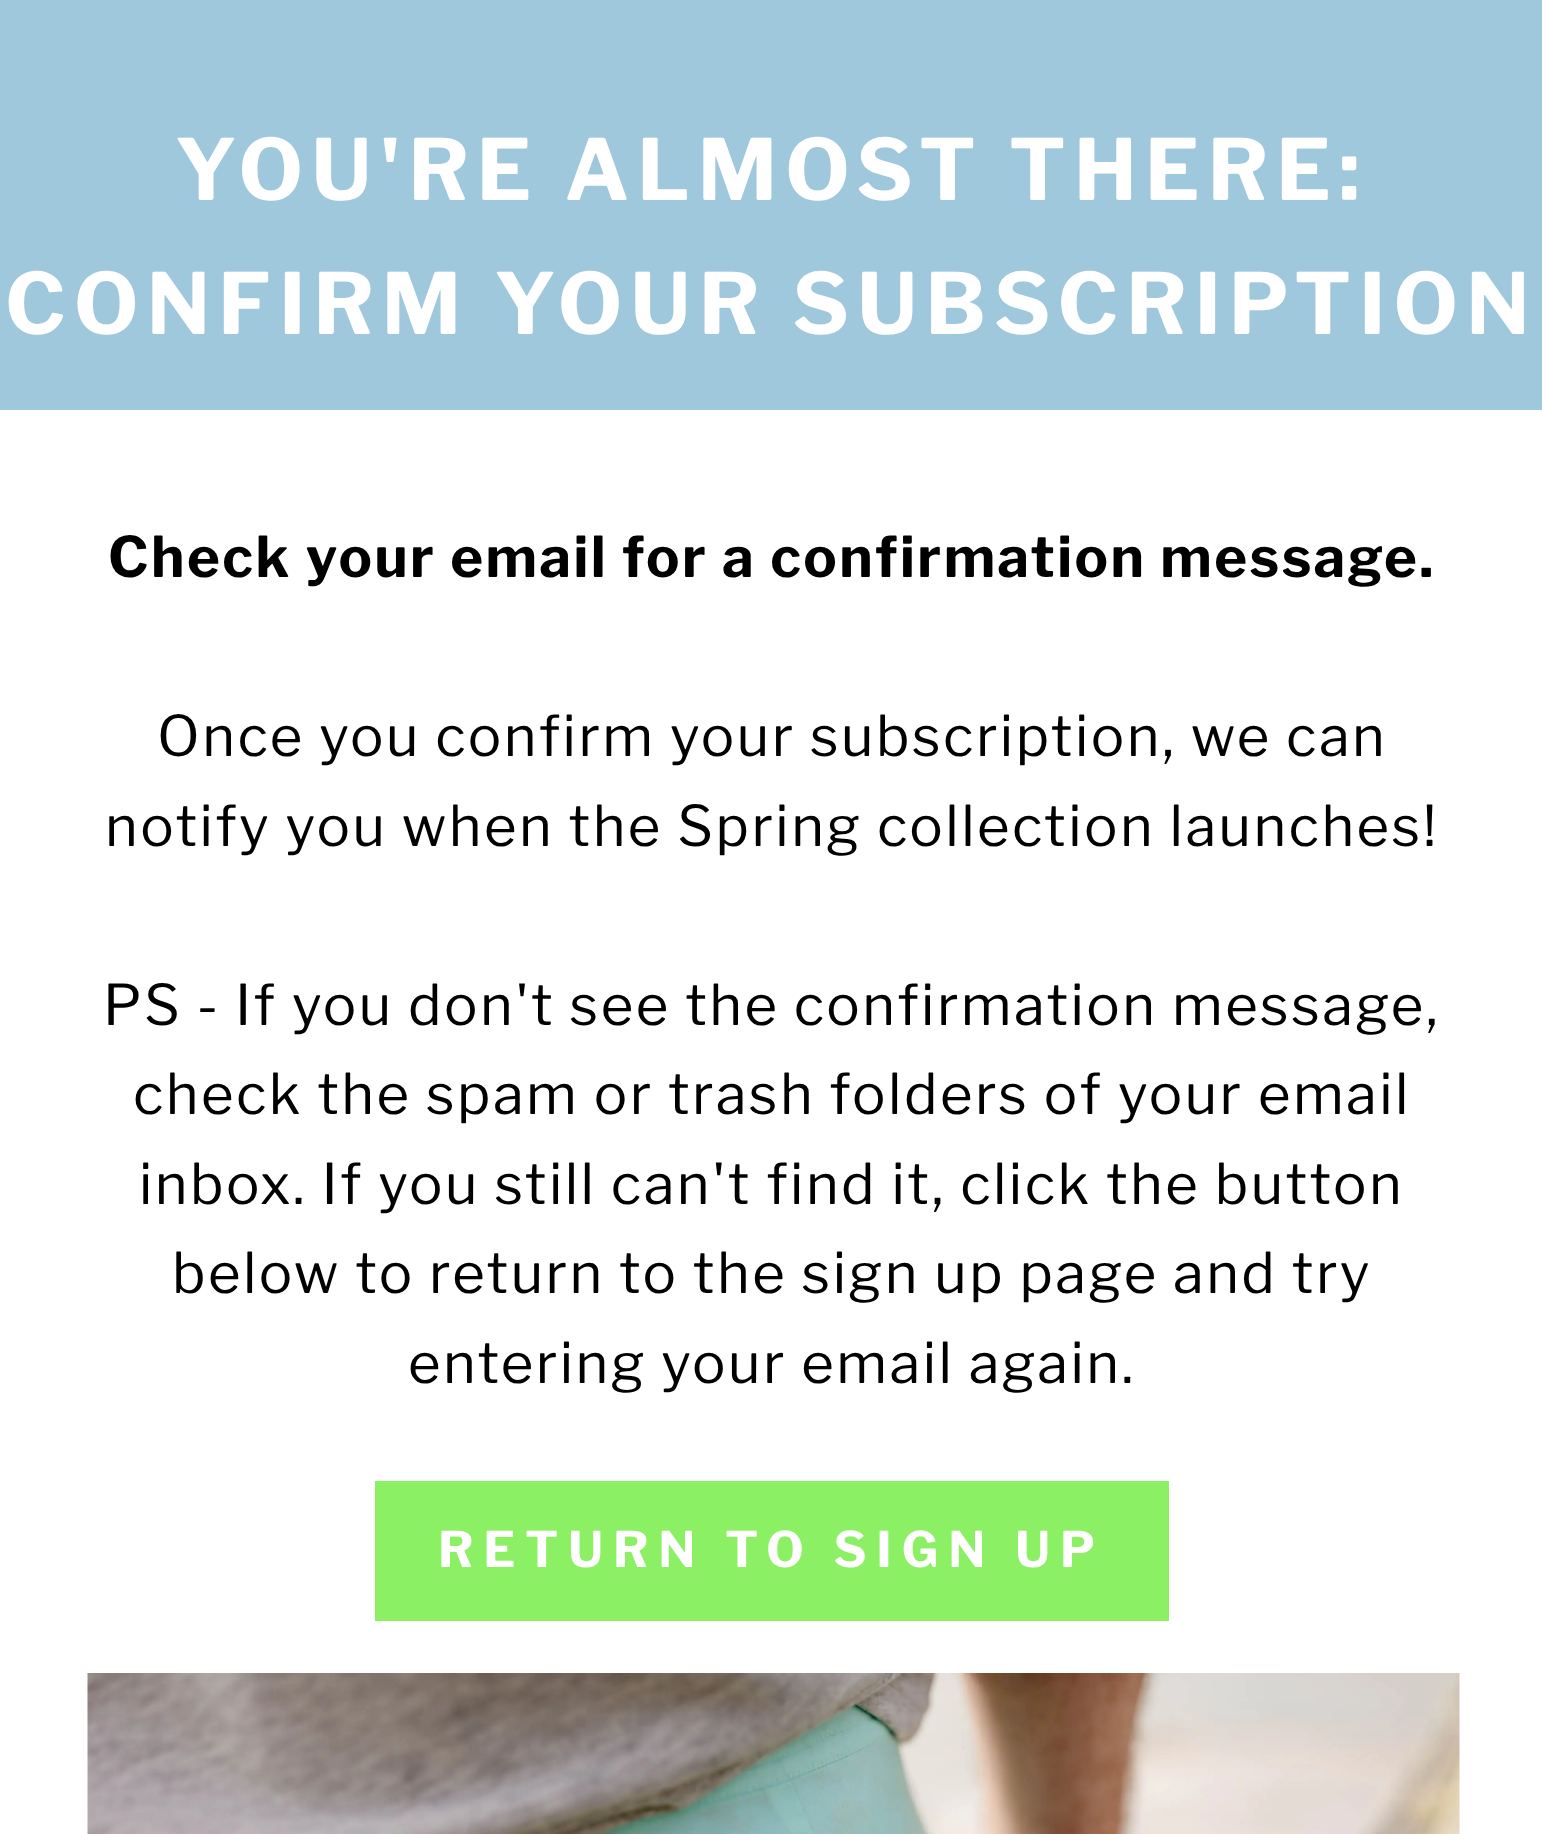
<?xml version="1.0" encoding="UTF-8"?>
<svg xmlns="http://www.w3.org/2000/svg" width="1542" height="1834">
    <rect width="100%" height="100%" fill="#FFFFFF"/>
    <rect x="0" y="0" width="1542" height="410" fill="#A0C8DC"/>
    <text x="175" y="200" font-family="Libre Franklin" font-size="84" font-weight="700" letter-spacing="7.8" fill="#FFFFFF">YOU'RE ALMOST THERE:</text>
    <text x="5" y="334" font-family="Libre Franklin" font-size="84" font-weight="700" letter-spacing="7.8" fill="#FFFFFF">CONFIRM YOUR SUBSCRIPTION</text>
    <text x="108" y="577" font-family="Libre Franklin" font-size="56" font-weight="700" letter-spacing="2.45" fill="#000000">Check your email for a confirmation message.</text>
    <text x="157" y="756" font-family="Libre Franklin" font-size="56" letter-spacing="2.45" fill="#000000">Once you confirm your subscription, we can</text>
    <text x="105" y="846" font-family="Libre Franklin" font-size="56" letter-spacing="2.45" fill="#000000">notify you when the Spring collection launches!</text>
    <text x="103" y="1025" font-family="Libre Franklin" font-size="56" letter-spacing="2.45" fill="#000000">PS - If you don't see the confirmation message,</text>
    <text x="133" y="1114" font-family="Libre Franklin" font-size="56" letter-spacing="2.45" fill="#000000">check the spam or trash folders of your email</text>
    <text x="139" y="1204" font-family="Libre Franklin" font-size="56" letter-spacing="2.45" fill="#000000">inbox. If you still can't find it, click the button</text>
    <text x="172" y="1293" font-family="Libre Franklin" font-size="56" letter-spacing="2.45" fill="#000000">below to return to the sign up page and try</text>
    <text x="408" y="1383" font-family="Libre Franklin" font-size="56" letter-spacing="2.45" fill="#000000">entering your email again.</text>
    <rect x="375" y="1481" width="794" height="140" fill="#8CF064"/>
    <text x="438" y="1567" font-family="Libre Franklin" font-size="49" font-weight="700" letter-spacing="9.75" fill="#FFFFFF">RETURN TO SIGN UP</text>
    <image x="87" y="1673" width="1373" height="161" href="img_01.png"/>
</svg>
